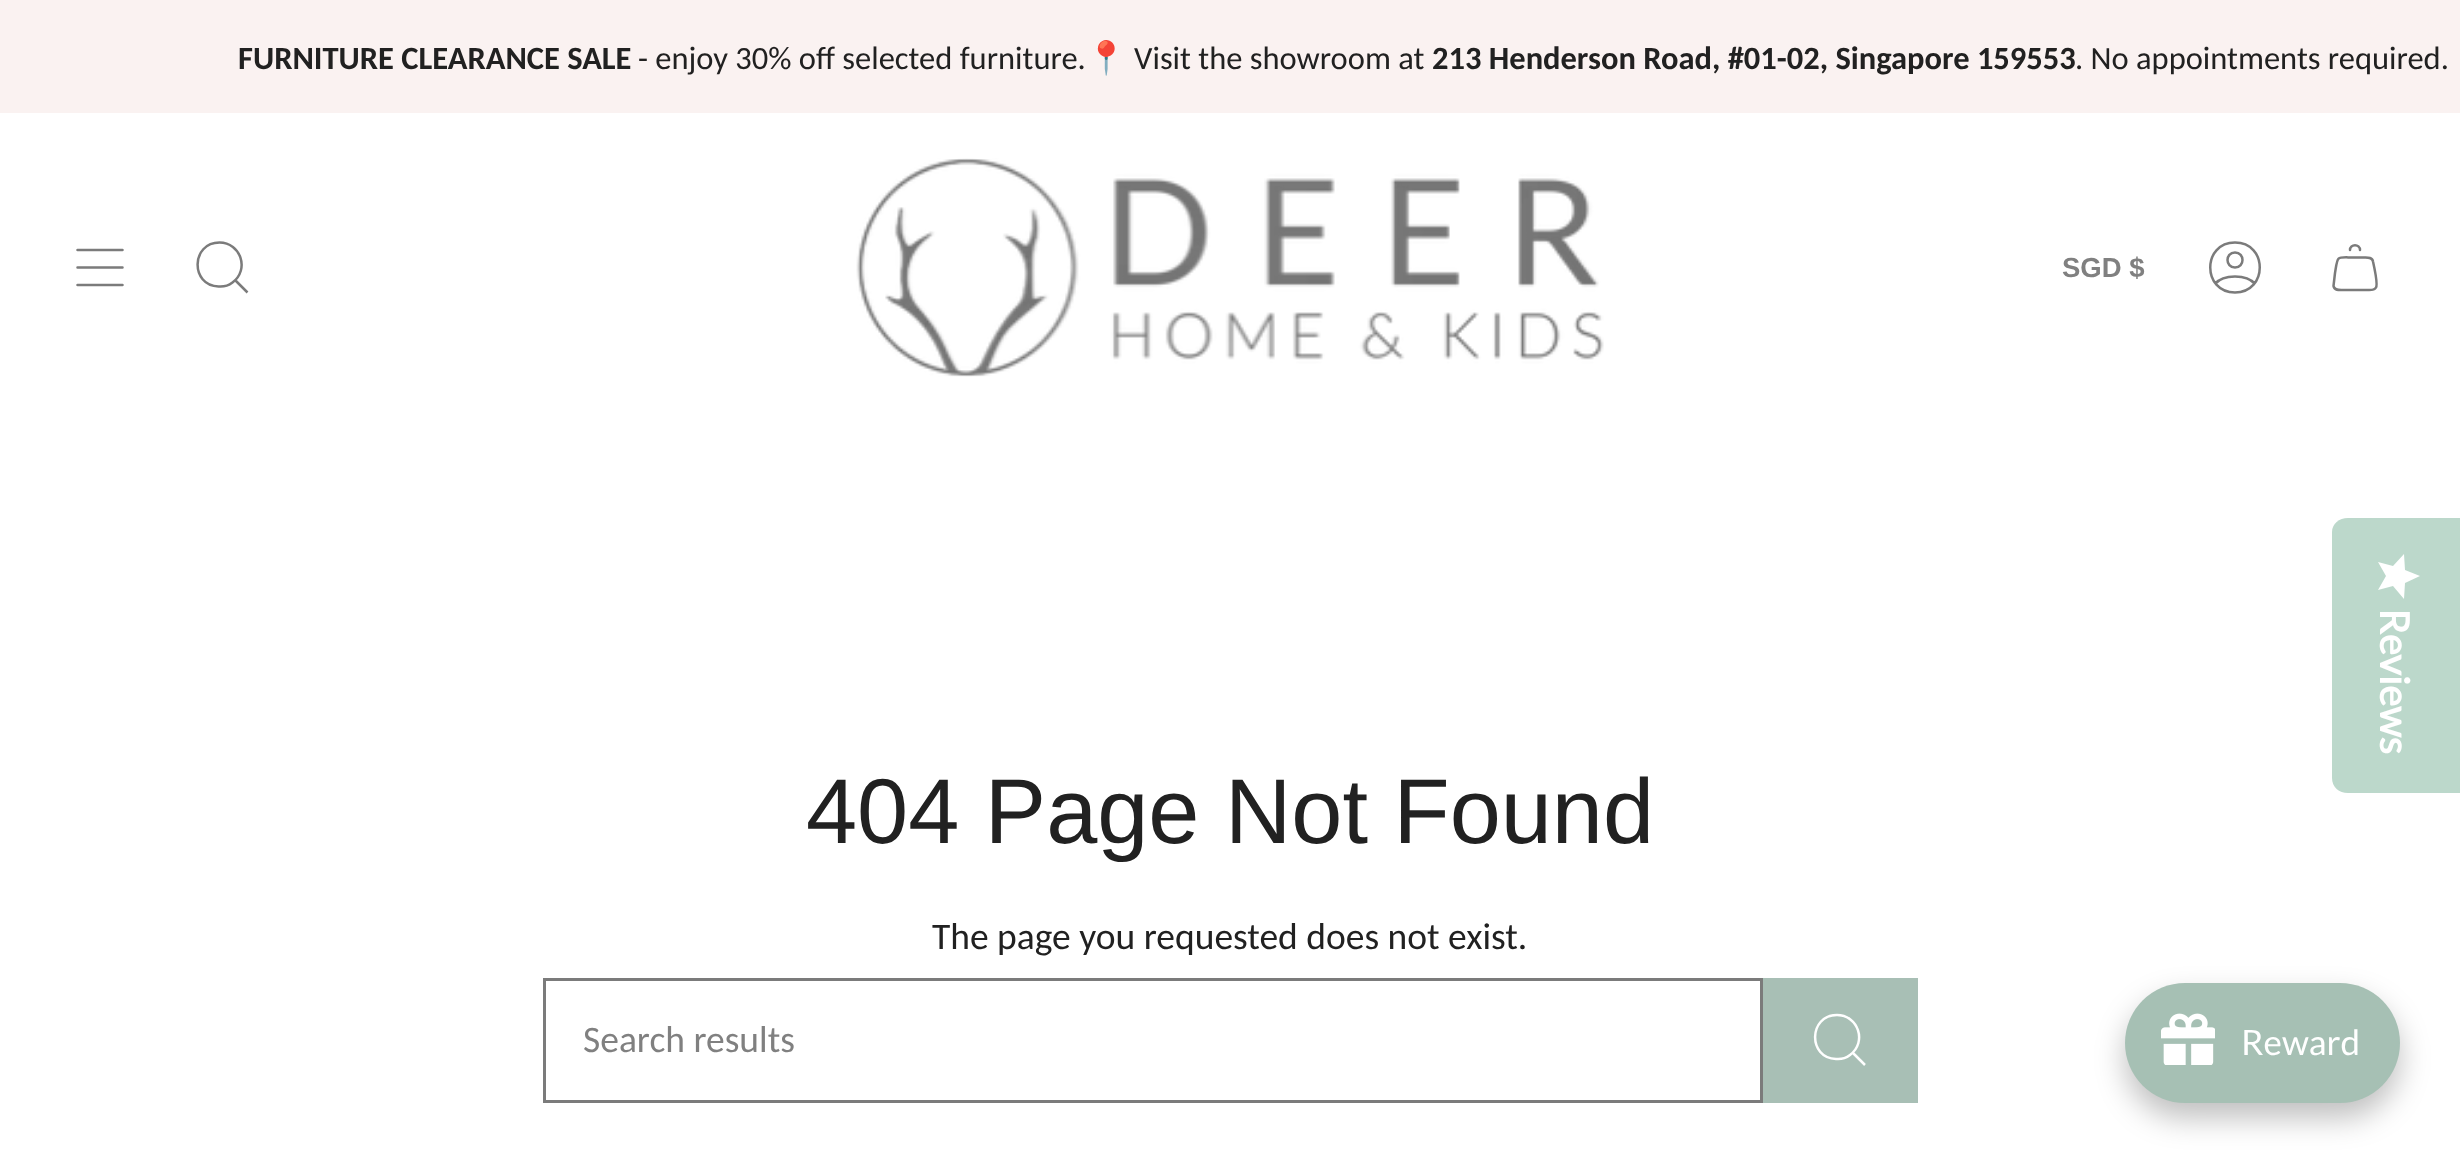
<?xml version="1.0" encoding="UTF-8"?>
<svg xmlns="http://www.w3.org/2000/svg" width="2460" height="1161">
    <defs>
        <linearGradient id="g1" gradientUnits="userSpaceOnUse" x1="2420" y1="554" x2="2420" y2="599"><stop offset="1" stop-color="#FFFFFF"/><stop offset="1" stop-color="#EAEAEA"/></linearGradient>
        <filter id="blur1" x="-50%" y="-200%" width="200%" height="500%"><feGaussianBlur stdDeviation="15"/></filter>
    </defs>
    <rect width="100%" height="100%" fill="#FFFFFF"/>
    <rect x="0" y="0" width="2460" height="113" fill="#FAF2F1"/>
    <text x="238" y="69" font-family="Carlito" font-size="32.5" font-weight="700" fill="#212121">FURNITURE CLEARANCE SALE</text>
    <text x="638" y="69" font-family="Carlito" font-size="32.5" fill="#212121">- enjoy 30% off selected furniture.</text>
    <text x="1086" y="69" font-family="Noto Color Emoji" font-size="32.5" fill="#212121">📍</text>
    <text x="1134" y="69" font-family="Carlito" font-size="32.5" fill="#212121">Visit the showroom at</text>
    <text x="1432" y="69" font-family="Carlito" font-size="32.5" font-weight="700" fill="#212121">213 Henderson Road, #01-02, Singapore 159553</text>
    <text x="2075" y="69" font-family="Carlito" font-size="32.5" fill="#212121">. No appointments required.</text>
    <path d="M 77.5 250 H 122.5 M 77.5 267.5 H 122.5 M 77.5 285 H 122.5" fill="none" stroke="#7B7B7B" stroke-width="2.5" stroke-linecap="round" stroke-linejoin="round"/>
    <path d="M 219.5 242.5 C 240.5 242.5 250 269.5 232.5 282.5 C 228.5 285.5 223.5 287 218.5 286.5 C 190 285.5 191 242.5 219.5 242.5 Z M 235.5 280.5 L 247.5 292.5" fill="none" stroke="#7B7B7B" stroke-width="2.5"/>
    <image x="856" y="158" width="748" height="219" href="img_01.png"/>
    <text x="2062" y="277" font-family="Liberation Sans" font-size="27.5" font-weight="700" fill="#808080">SGD $</text>
    <path d="M 2235 242.5 C 2202 242.5 2202 292.5 2235 292.5 C 2268 292.5 2268 242.5 2235 242.5 Z M 2215.5 283.5 C 2223 274 2247 274 2254.5 283.5 M 2235 267.5 C 2245 267.5 2245 252.5 2235 252.5 C 2225 252.5 2225 267.5 2235 267.5 Z" fill="none" stroke="#7B7B7B" stroke-width="2.5" stroke-linecap="round" stroke-linejoin="round"/>
    <path d="M 2373 261.5 C 2374 266 2378 284 2376 287.5 C 2374 291 2369.5 290 2366 290 H 2344 C 2340 290 2334.5 291 2333.5 286 L 2335 273 C 2338 254.5 2336 257.5 2355 257.5 H 2364 C 2367.5 257.5 2372.5 257 2373 261.5 Z M 2360 250 C 2360 243.5 2350 243.5 2350 250" fill="none" stroke="#7B7B7B" stroke-width="2.5" stroke-linecap="round" stroke-linejoin="round"/>
    <text x="806" y="843" font-family="Liberation Sans" font-size="91.9" fill="#212121">404 Page Not Found</text>
    <text x="932" y="949" font-family="Carlito" font-size="37.5" fill="#212121">The page you requested does not exist.</text>
    <rect x="544.5" y="979.5" width="1217" height="122" fill="none" stroke="#7B7B7B" stroke-width="3"/>
    <text x="583" y="1052" font-family="Carlito" font-size="37.5" fill="#808080">Search results</text>
    <rect x="1763" y="978" width="155" height="125" fill="#A8BFB5"/>
    <path d="M 1837 1015 C 1858 1015 1867.5 1042 1850 1055 C 1846 1058 1841 1059.5 1836 1059 C 1807.5 1058 1808.5 1015 1837 1015 Z M 1853 1053 L 1865 1065" fill="none" stroke="#FFFFFF" stroke-width="2.5"/>
    <path d="M 2460 518 V 793 H 2348 C 2339 793 2332 787 2332 778 V 532 C 2332 524 2339 518 2348 518 Z" fill="#BCD8CB"/>
    <path d="M 2386 576 L 2378 590 L 2393 586 L 2404 599 L 2405 583 L 2420 576 L 2405 570 L 2404 554 L 2393 566 L 2378 562 Z" fill="url(#g1)"/>
    <text x="2380" y="608" transform="rotate(90 2380 608)" font-family="Lato" font-size="40" font-weight="700" fill="#FFFFFF">Reviews</text>
    <rect x="2125" y="998" width="275" height="120" rx="60" fill="#000000" fill-opacity="0.25" filter="url(#blur1)"/>
    <rect x="2125" y="983" width="275" height="120" rx="60" fill="#A6C0B4"/>
    <image x="2161" y="1013" width="54" height="52" href="img_02.png"/>
    <text x="2241" y="1055" font-family="Lato" font-size="35" fill="#FFFFFF">Reward</text>
</svg>
